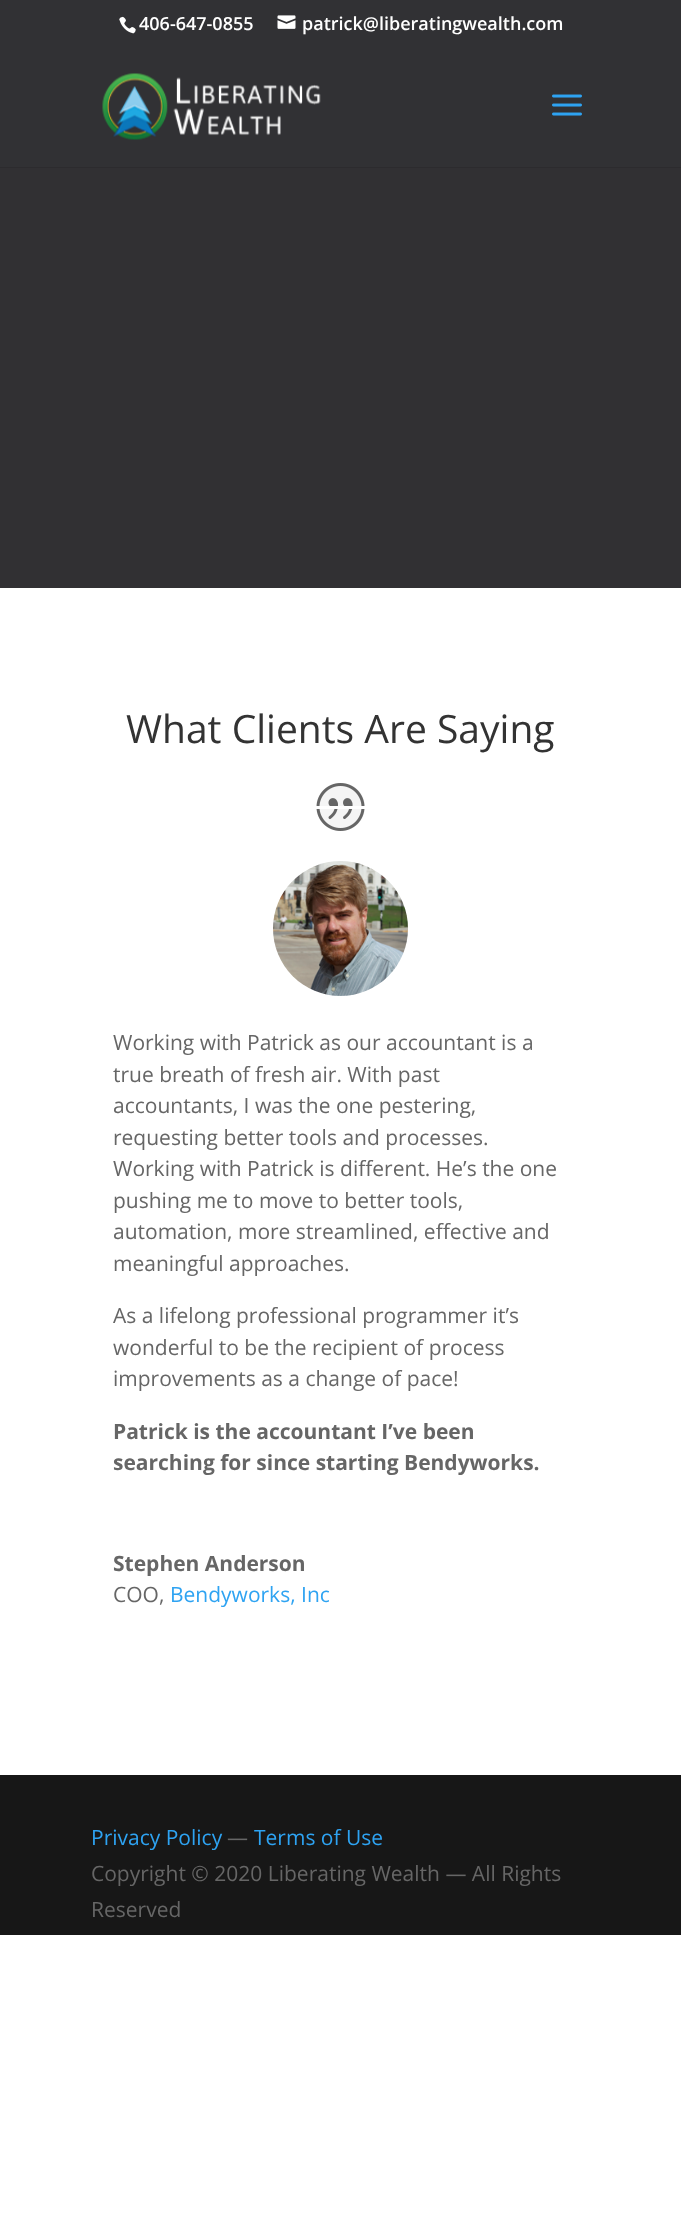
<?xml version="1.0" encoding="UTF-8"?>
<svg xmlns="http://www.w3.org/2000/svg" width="681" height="2214">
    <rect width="100%" height="100%" fill="#FFFFFF"/>
    <rect x="0" y="167" width="681" height="1" fill="#2C2B2E"/>
    <rect x="0" y="0" width="681" height="167" fill="#313134"/>
    <image x="102" y="73" width="219" height="67" href="img_01.png"/>
    <image x="552" y="94" width="30" height="22" href="img_02.png"/>
    <image x="119" y="16" width="17" height="18" href="img_03.png"/>
    <text x="139" y="30" font-family="Open Sans" font-size="18" font-weight="600" fill="#FFFFFF">406-647-0855</text>
    <image x="277" y="15" width="19" height="14" href="img_04.png"/>
    <text x="302" y="30" font-family="Open Sans" font-size="18" font-weight="600" fill="#FFFFFF">patrick@liberatingwealth.com</text>
    <rect x="0" y="168" width="681" height="420" fill="#313033"/>
    <circle cx="341" cy="807" r="24" fill="#F5F5F5"/>
    <image x="316" y="783" width="49" height="48" href="img_05.png"/>
    <rect x="208.5" y="769.5" width="242" height="38" rx="3.5" fill="none" stroke="#FFFFFF" stroke-width="3"/>
    <text x="126" y="743" font-family="Open Sans" font-size="39" fill="#333333">What Clients Are Saying</text>
    <image x="273" y="861" width="135" height="135" href="img_06.png"/>
    <text font-family="Open Sans" font-size="21" fill="#666666">
        <tspan x="113" y="1050">Working with Patrick as our accountant is a</tspan>
        <tspan x="113" y="1082">true breath of fresh air. With past</tspan>
        <tspan x="113" y="1113">accountants, I was the one pestering,</tspan>
        <tspan x="113" y="1145">requesting better tools and processes.</tspan>
        <tspan x="113" y="1176">Working with Patrick is different. He’s the one</tspan>
        <tspan x="113" y="1208">pushing me to move to better tools,</tspan>
        <tspan x="113" y="1239">automation, more streamlined, effective and</tspan>
        <tspan x="113" y="1271">meaningful approaches.</tspan>
    </text>
    <text font-family="Open Sans" font-size="21" fill="#666666">
        <tspan x="113" y="1323">As a lifelong professional programmer it’s</tspan>
        <tspan x="113" y="1355">wonderful to be the recipient of process</tspan>
        <tspan x="113" y="1386">improvements as a change of pace!</tspan>
    </text>
    <text font-family="Open Sans" font-size="21" font-weight="700" fill="#666666">
        <tspan x="113" y="1439">Patrick is the accountant I’ve been</tspan>
        <tspan x="113" y="1470">searching for since starting Bendyworks.</tspan>
    </text>
    <text x="113" y="1571" font-family="Open Sans" font-size="21" font-weight="700" fill="#666666">Stephen Anderson</text>
    <text x="113" y="1602" font-family="Open Sans" font-size="21" fill="#666666">COO,</text>
    <text x="170" y="1602" font-family="Open Sans" font-size="21" fill="#2EA3F2">Bendyworks, Inc</text>
    <rect x="0" y="1775" width="681" height="160" fill="#171717"/>
    <text x="91" y="1845" font-family="Open Sans" font-size="21" fill="#2EA3F2">Privacy Policy</text>
    <text x="227" y="1845" font-family="Open Sans" font-size="21" fill="#666666">—</text>
    <text x="254" y="1845" font-family="Open Sans" font-size="21" fill="#2EA3F2">Terms of Use</text>
    <text font-family="Open Sans" font-size="21" fill="#666666">
        <tspan x="91" y="1881">Copyright © 2020 Liberating Wealth — All Rights</tspan>
        <tspan x="91" y="1917">Reserved</tspan>
    </text>
</svg>
